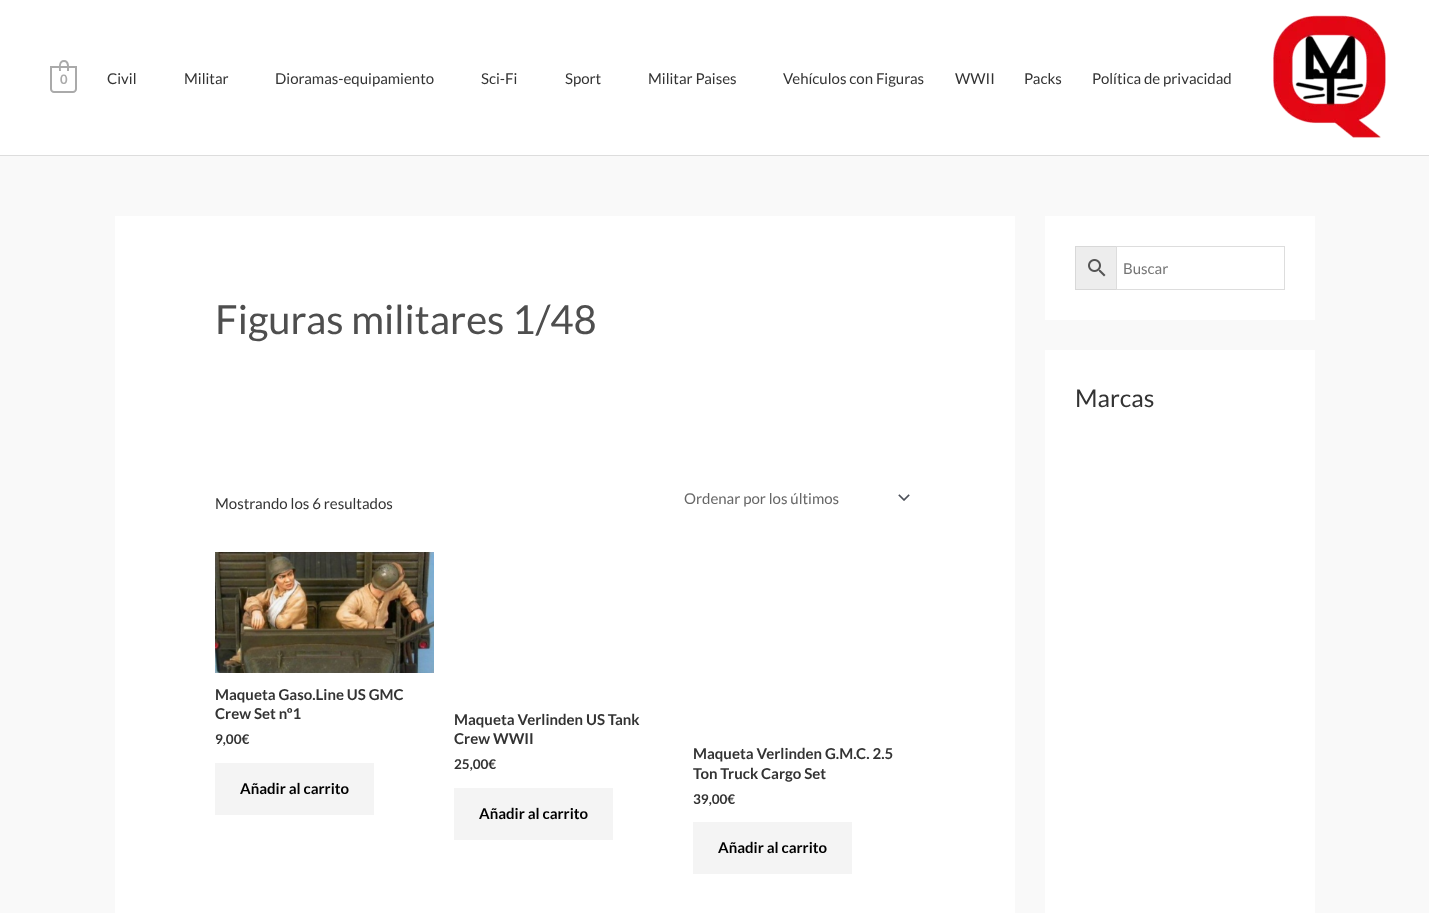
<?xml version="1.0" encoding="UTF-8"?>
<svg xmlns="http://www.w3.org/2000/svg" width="1429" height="913">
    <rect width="100%" height="100%" fill="#F9F9F9"/>
    <rect x="0" y="0" width="1429" height="155" fill="#FFFFFF"/>
    <rect x="0" y="155" width="1429" height="1" fill="#DDDDDD"/>
    <path d="M 51 67 H 76 V 89 C 76 90.5 74.5 92 73 92 H 54 C 52.5 92 51 90.5 51 89 Z" fill="none" stroke="#AAAAAA" stroke-width="2"/>
    <path d="M 64 60 C 70 60 69 67 69 71 H 59 C 59 67 58 60 64 60 Z M 64 62 C 68 62 67 68.5 67 71 H 61 C 61 68.5 59.5 62 64 62 Z" fill="#AAAAAA" fill-rule="evenodd"/>
    <text x="60" y="84" font-family="Lato" font-size="13" font-weight="700" fill="#AAAAAA">0</text>
    <text x="107" y="84" font-family="Lato" font-size="15" fill="#333333">Civil</text>
    <text x="184" y="84" font-family="Lato" font-size="15" fill="#333333">Militar</text>
    <text x="275" y="84" font-family="Lato" font-size="15" fill="#333333">Dioramas-equipamiento</text>
    <text x="481" y="84" font-family="Lato" font-size="15" fill="#333333">Sci-Fi</text>
    <text x="565" y="84" font-family="Lato" font-size="15" fill="#333333">Sport</text>
    <text x="648" y="84" font-family="Lato" font-size="15" fill="#333333">Militar Paises</text>
    <text x="783" y="84" font-family="Lato" font-size="15" fill="#333333">Vehículos con Figuras</text>
    <text x="955" y="84" font-family="Lato" font-size="15" fill="#333333">WWII</text>
    <text x="1024" y="84" font-family="Lato" font-size="15" fill="#333333">Packs</text>
    <text x="1092" y="84" font-family="Lato" font-size="15" fill="#333333">Política de privacidad</text>
    <image x="1273" y="15" width="113" height="123" href="img_01.png"/>
    <rect x="115" y="216" width="900" height="697" fill="#FFFFFF"/>
    <text x="215" y="334" font-family="Lato" font-size="40" fill="#4E4E4E">Figuras militares 1/48</text>
    <text x="215" y="509" font-family="Lato" font-size="15" fill="#333333">Mostrando los 6 resultados</text>
    <image x="898" y="494" width="12" height="7" href="img_02.png"/>
    <text x="684" y="504" font-family="Lato" font-size="15" fill="#666666">Ordenar por los últimos</text>
    <image x="215" y="552" width="219" height="121" href="img_03.png"/>
    <text font-family="Lato" font-size="15" font-weight="700" fill="#333333">
        <tspan x="215" y="700">Maqueta Gaso.Line US GMC</tspan>
        <tspan x="215" y="719">Crew Set nº1</tspan>
    </text>
    <text x="215" y="744" font-family="Lato" font-size="13.5" font-weight="700" fill="#333333">9,00€</text>
    <rect x="215" y="763" width="159" height="52" fill="#F4F4F4"/>
    <text x="240" y="794" font-family="Lato" font-size="15" font-weight="700" fill="#000000">Añadir al carrito</text>
    <text font-family="Lato" font-size="15" font-weight="700" fill="#333333">
        <tspan x="454" y="725">Maqueta Verlinden US Tank</tspan>
        <tspan x="454" y="744">Crew WWII</tspan>
    </text>
    <text x="454" y="769" font-family="Lato" font-size="13.5" font-weight="700" fill="#333333">25,00€</text>
    <rect x="454" y="788" width="159" height="52" fill="#F4F4F4"/>
    <text x="479" y="819" font-family="Lato" font-size="15" font-weight="700" fill="#000000">Añadir al carrito</text>
    <text font-family="Lato" font-size="15" font-weight="700" fill="#333333">
        <tspan x="693" y="759">Maqueta Verlinden G.M.C. 2.5</tspan>
        <tspan x="693" y="779">Ton Truck Cargo Set</tspan>
    </text>
    <text x="693" y="804" font-family="Lato" font-size="13.5" font-weight="700" fill="#333333">39,00€</text>
    <rect x="693" y="822" width="159" height="52" fill="#F4F4F4"/>
    <text x="718" y="853" font-family="Lato" font-size="15" font-weight="700" fill="#000000">Añadir al carrito</text>
    <rect x="1045" y="216" width="270" height="104" fill="#FFFFFF"/>
    <rect x="1075.5" y="246.5" width="41" height="43" fill="#EDEDED" stroke="#D8D8D8"/>
    <image x="1088" y="259" width="18" height="18" href="img_04.png"/>
    <rect x="1116.5" y="246.5" width="168" height="43" fill="none" stroke="#DDDDDD"/>
    <text x="1123" y="274" font-family="Lato" font-size="15" fill="#757575">Buscar</text>
    <rect x="1045" y="350" width="270" height="563" fill="#FFFFFF"/>
    <text x="1075" y="407" font-family="Lato" font-size="24.5" fill="#333333">Marcas</text>
</svg>
